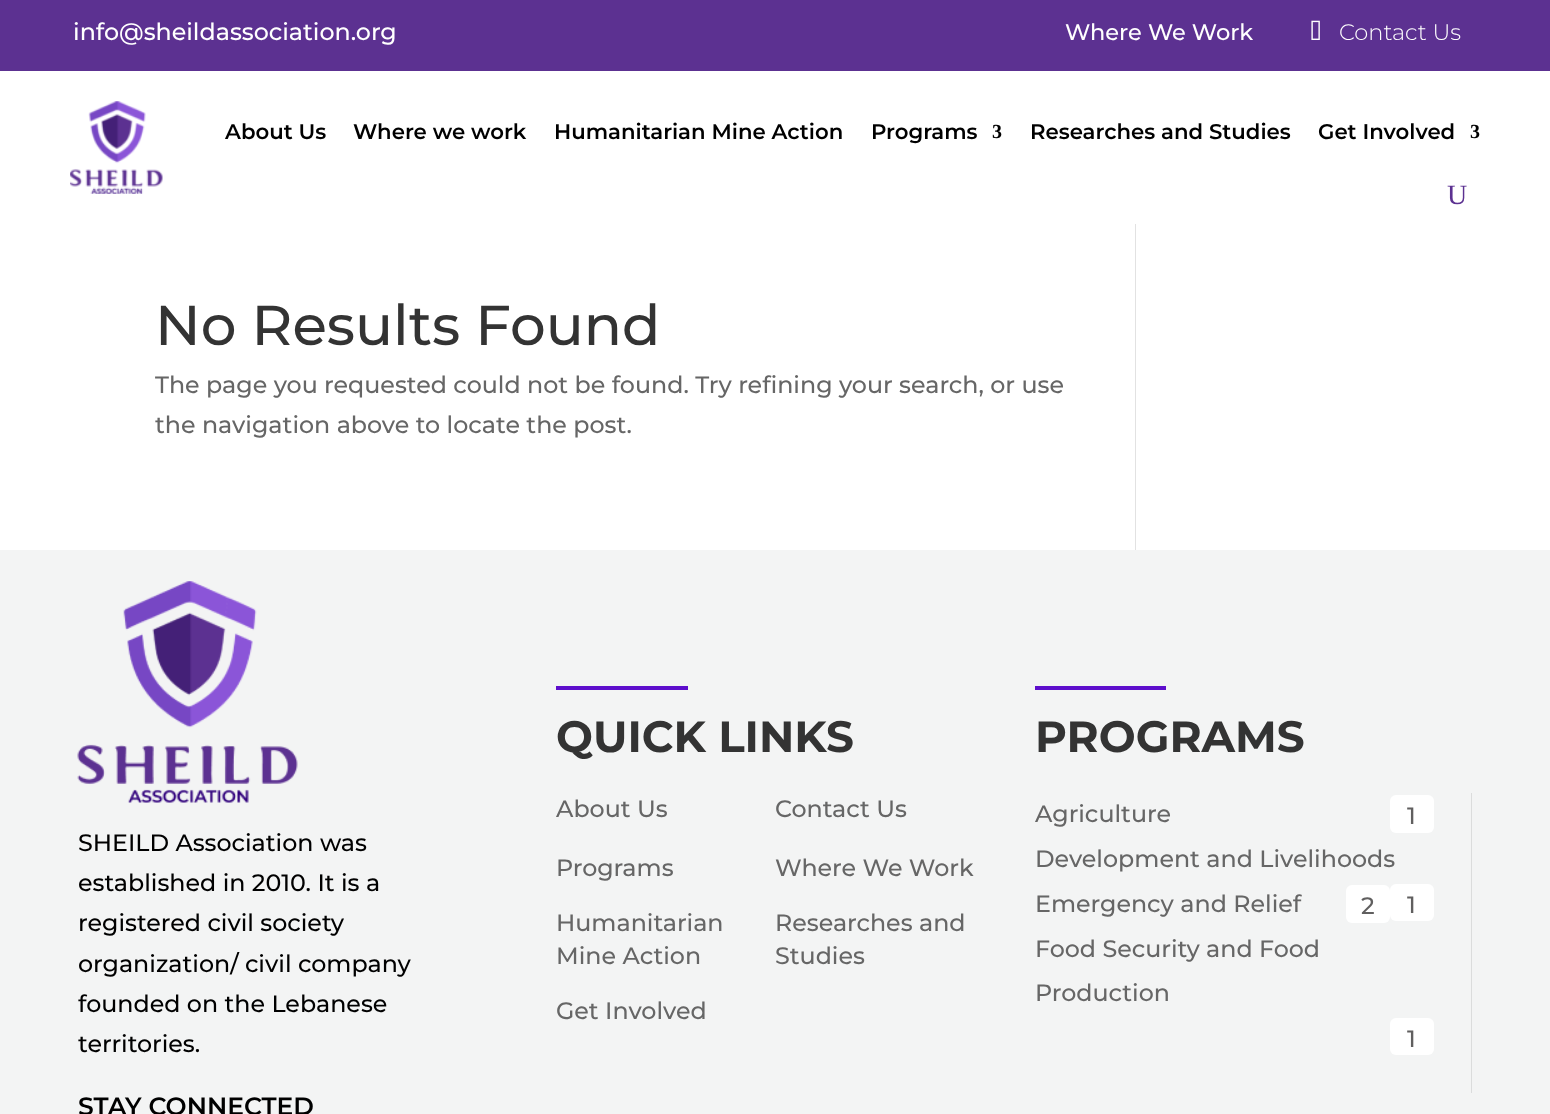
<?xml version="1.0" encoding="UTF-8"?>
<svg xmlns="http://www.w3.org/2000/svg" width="1550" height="1114">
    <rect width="100%" height="100%" fill="#FFFFFF"/>
    <rect x="0" y="0" width="1550" height="71" fill="#5C3191"/>
    <text x="73" y="40" font-family="Montserrat" font-size="23.75" font-weight="500" fill="#FFFFFF">info@sheildassociation.org</text>
    <text x="1065" y="40" font-family="Montserrat" font-size="22.5" font-weight="500" fill="#FFFFFF">Where We Work</text>
    <image x="1311" y="20" width="9" height="20" href="img_01.png"/>
    <text x="1339" y="40" font-family="Montserrat" font-size="22.5" font-weight="300" fill="#FFFFFF">Contact Us</text>
    <image x="70" y="101" width="93" height="93" href="img_02.png"/>
    <text x="225" y="139" font-family="Montserrat" font-size="21.25" font-weight="600" fill="#000000">About Us</text>
    <text x="353" y="139" font-family="Montserrat" font-size="21.25" font-weight="600" fill="#000000">Where we work</text>
    <text x="554" y="139" font-family="Montserrat" font-size="21.25" font-weight="600" fill="#000000">Humanitarian Mine Action</text>
    <text x="871" y="139" font-family="Montserrat" font-size="21.25" font-weight="600" fill="#000000">Programs</text>
    <text x="992" y="138" font-family="Liberation Serif" font-size="20" font-weight="700" fill="#000000">3</text>
    <text x="1030" y="139" font-family="Montserrat" font-size="21.25" font-weight="600" fill="#000000">Researches and Studies</text>
    <text x="1318" y="139" font-family="Montserrat" font-size="21.25" font-weight="600" fill="#000000">Get Involved</text>
    <text x="1470" y="138" font-family="Liberation Serif" font-size="20" font-weight="700" fill="#000000">3</text>
    <text x="1447" y="204" font-family="Liberation Serif" font-size="28" fill="#5C3191">U</text>
    <text x="155" y="345" font-family="Montserrat" font-size="56.25" font-weight="500" fill="#333333">No Results Found</text>
    <text font-family="Montserrat" font-size="23.75" font-weight="500" fill="#666666">
        <tspan x="155" y="393">The page you requested could not be found. Try refining your search, or use</tspan>
        <tspan x="155" y="433">the navigation above to locate the post.</tspan>
    </text>
    <rect x="1135" y="224" width="1" height="326" fill="#E2E2E2"/>
    <rect x="0" y="550" width="1550" height="564" fill="#F3F4F4"/>
    <image x="77" y="581" width="221" height="222" href="img_03.png"/>
    <text font-family="Montserrat" font-size="23.75" font-weight="500" fill="#000000">
        <tspan x="78" y="851">SHEILD Association was</tspan>
        <tspan x="78" y="891">established in 2010. It is a</tspan>
        <tspan x="78" y="931">registered civil society</tspan>
        <tspan x="78" y="972">organization/ civil company</tspan>
        <tspan x="78" y="1012">founded on the Lebanese</tspan>
        <tspan x="78" y="1052">territories.</tspan>
    </text>
    <text x="78" y="1115" font-family="Montserrat" font-size="25" font-weight="600" fill="#000000">STAY CONNECTED</text>
    <rect x="556" y="686" width="132" height="4" fill="#5D0ECC"/>
    <text x="556" y="752" font-family="Montserrat" font-size="43.75" font-weight="700" fill="#333333">QUICK LINKS</text>
    <text x="556" y="817" font-family="Montserrat" font-size="23.75" font-weight="500" fill="#666666">About Us</text>
    <text x="775" y="817" font-family="Montserrat" font-size="23.75" font-weight="500" fill="#666666">Contact Us</text>
    <text x="556" y="876" font-family="Montserrat" font-size="23.75" font-weight="500" fill="#666666">Programs</text>
    <text x="775" y="876" font-family="Montserrat" font-size="23.75" font-weight="500" fill="#666666">Where We Work</text>
    <text font-family="Montserrat" font-size="23.75" font-weight="500" fill="#666666">
        <tspan x="556" y="931">Humanitarian</tspan>
        <tspan x="556" y="964">Mine Action</tspan>
    </text>
    <text font-family="Montserrat" font-size="23.75" font-weight="500" fill="#666666">
        <tspan x="775" y="931">Researches and</tspan>
        <tspan x="775" y="964">Studies</tspan>
    </text>
    <text x="556" y="1019" font-family="Montserrat" font-size="23.75" font-weight="500" fill="#666666">Get Involved</text>
    <rect x="1035" y="686" width="131" height="4" fill="#5D0ECC"/>
    <text x="1035" y="752" font-family="Montserrat" font-size="43.75" font-weight="700" fill="#333333">PROGRAMS</text>
    <rect x="1471" y="793" width="1" height="300" fill="#DBDCDC"/>
    <text x="1035" y="822" font-family="Montserrat" font-size="23.75" font-weight="500" fill="#666666">Agriculture</text>
    <rect x="1390" y="795" width="44" height="38" rx="6" fill="#FFFFFF"/>
    <text x="1407" y="824" font-family="Montserrat" font-size="23.75" font-weight="500" fill="#605F5F">1</text>
    <text x="1035" y="867" font-family="Montserrat" font-size="23.75" font-weight="500" fill="#666666">Development and Livelihoods</text>
    <rect x="1390" y="884" width="44" height="37" rx="6" fill="#FFFFFF"/>
    <text x="1407" y="913" font-family="Montserrat" font-size="23.75" font-weight="500" fill="#605F5F">1</text>
    <text x="1035" y="912" font-family="Montserrat" font-size="23.75" font-weight="500" fill="#666666">Emergency and Relief</text>
    <rect x="1346" y="885" width="44" height="38" rx="6" fill="#FFFFFF"/>
    <text x="1361" y="914" font-family="Montserrat" font-size="23.75" font-weight="500" fill="#605F5F">2</text>
    <text font-family="Montserrat" font-size="23.75" font-weight="500" fill="#666666">
        <tspan x="1035" y="957">Food Security and Food</tspan>
        <tspan x="1035" y="1001">Production</tspan>
    </text>
    <rect x="1390" y="1018" width="44" height="37" rx="6" fill="#FFFFFF"/>
    <text x="1407" y="1047" font-family="Montserrat" font-size="23.75" font-weight="500" fill="#605F5F">1</text>
</svg>
